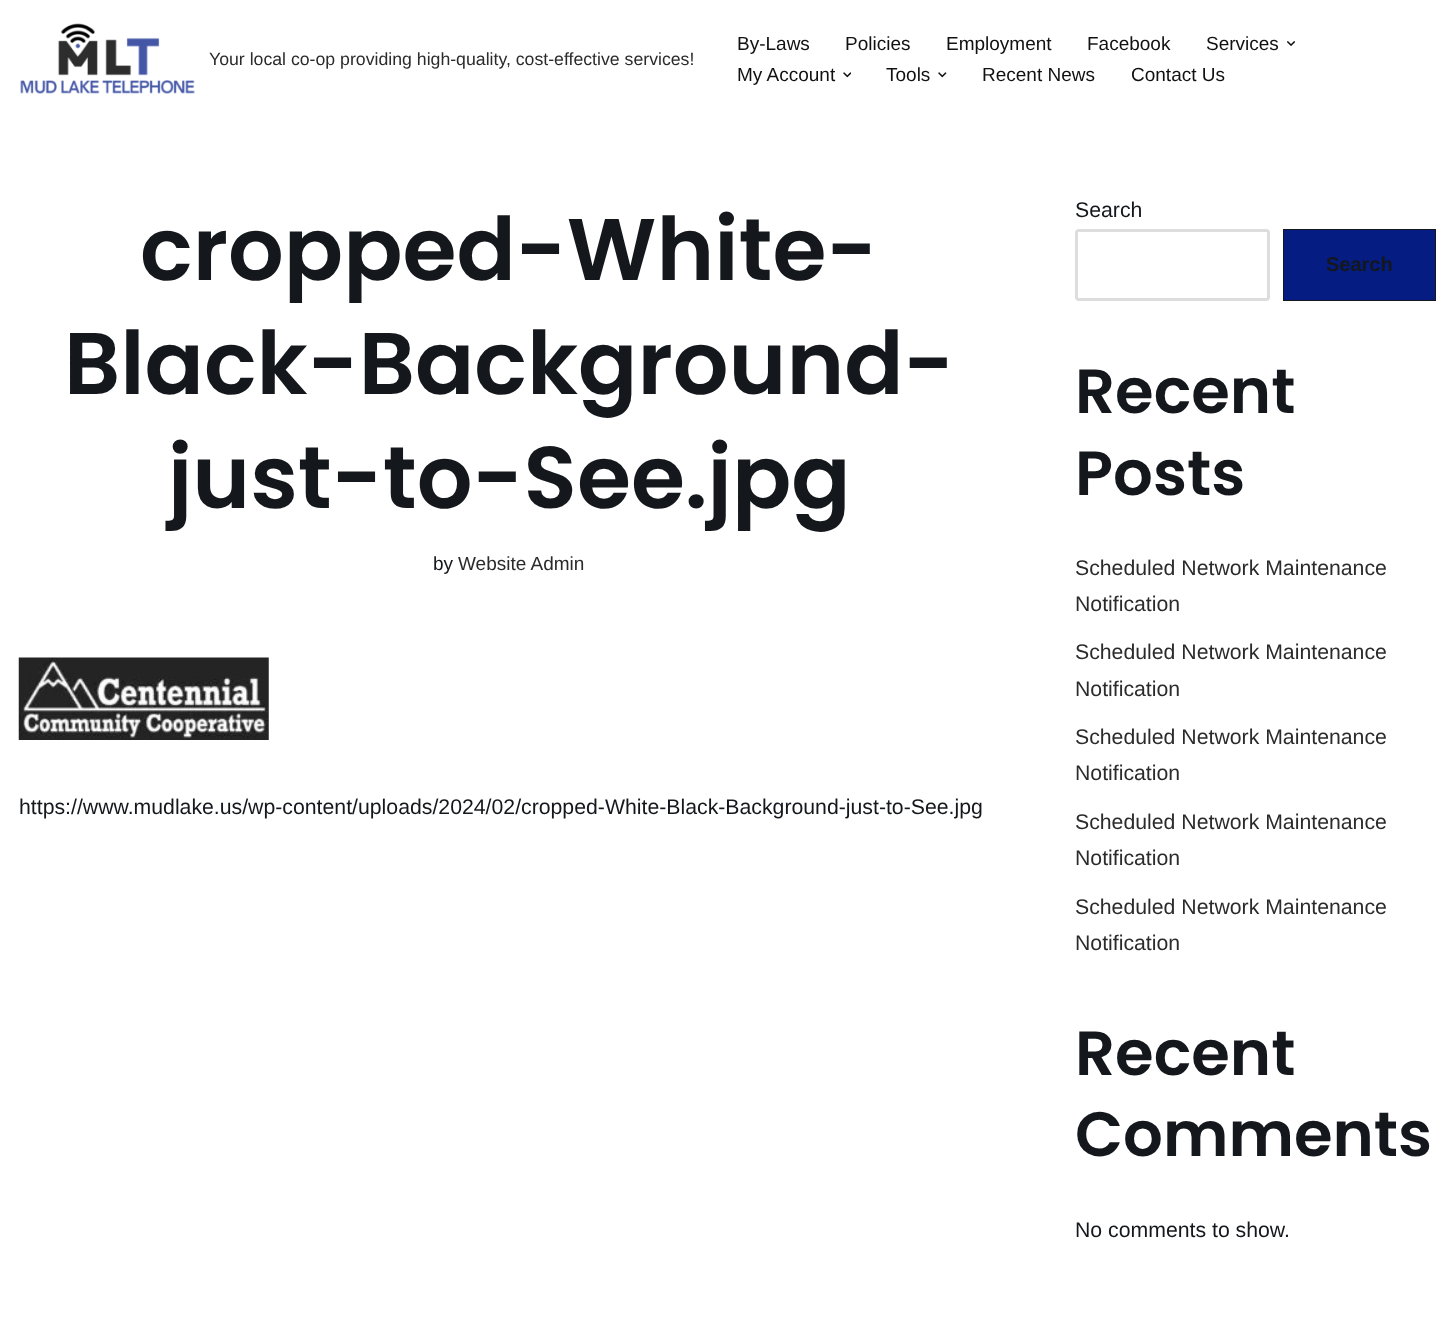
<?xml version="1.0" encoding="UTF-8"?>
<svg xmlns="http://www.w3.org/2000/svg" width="1455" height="1344">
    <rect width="100%" height="100%" fill="#FFFFFF"/>
    <image x="20" y="23" width="175" height="71" href="img_01.png"/>
    <text x="209" y="65" font-family="Liberation Sans" font-size="17.7" fill="#2B2B2B">Your local co-op providing high-quality, cost-effective services!</text>
    <text x="737" y="50" font-family="Liberation Sans" font-size="19" fill="#111111">By-Laws</text>
    <text x="845" y="50" font-family="Liberation Sans" font-size="19" fill="#111111">Policies</text>
    <text x="946" y="50" font-family="Liberation Sans" font-size="19" fill="#111111">Employment</text>
    <text x="1087" y="50" font-family="Liberation Sans" font-size="19" fill="#111111">Facebook</text>
    <text x="1206" y="50" font-family="Liberation Sans" font-size="19" fill="#111111">Services</text>
    <image x="1287" y="41" width="8" height="5" href="img_02.png"/>
    <text x="737" y="81" font-family="Liberation Sans" font-size="19" fill="#111111">My Account</text>
    <image x="843" y="72" width="8" height="6" href="img_03.png"/>
    <text x="886" y="81" font-family="Liberation Sans" font-size="19" fill="#111111">Tools</text>
    <image x="938" y="72" width="9" height="6" href="img_04.png"/>
    <text x="982" y="81" font-family="Liberation Sans" font-size="19" fill="#111111">Recent News</text>
    <text x="1131" y="81" font-family="Liberation Sans" font-size="19" fill="#111111">Contact Us</text>
    <text x="140" y="280" font-family="Poppins" font-size="87.5" font-weight="600" fill="#14171C">cropped-White-</text>
    <text x="64" y="394" font-family="Poppins" font-size="87.5" font-weight="600" fill="#14171C">Black-Background-</text>
    <text x="168" y="508" font-family="Poppins" font-size="87.5" font-weight="600" fill="#14171C">just-to-See.jpg</text>
    <text x="433" y="570" font-family="Liberation Sans" font-size="19" fill="#14171C">by</text>
    <text x="458" y="570" font-family="Liberation Sans" font-size="19" fill="#2B2B2B">Website Admin</text>
    <image x="18" y="657" width="251" height="83" href="img_05.png"/>
    <text x="19" y="814" font-family="Liberation Sans" font-size="21.25" fill="#14171C">https://www.mudlake.us/wp-content/uploads/2024/02/cropped-White-Black-Background-just-to-See.jpg</text>
    <text x="1075" y="217" font-family="Liberation Sans" font-size="21.25" fill="#14171C">Search</text>
    <rect x="1076.5" y="230.5" width="192" height="69" rx="2.5" fill="none" stroke="#DDDDDD" stroke-width="3"/>
    <rect x="1283.5" y="229.5" width="152" height="71" fill="#051C82" stroke="#14171C"/>
    <text x="1326" y="271" font-family="Liberation Sans" font-size="20" font-weight="700" fill="#14171C">Search</text>
    <text font-family="Poppins" font-size="62.5" font-weight="600" fill="#14171C">
        <tspan x="1075" y="413">Recent</tspan>
        <tspan x="1075" y="495">Posts</tspan>
    </text>
    <text font-family="Liberation Sans" font-size="21.25" fill="#2B2B2B">
        <tspan x="1075" y="575">Scheduled Network Maintenance</tspan>
        <tspan x="1075" y="611">Notification</tspan>
    </text>
    <text font-family="Liberation Sans" font-size="21.25" fill="#2B2B2B">
        <tspan x="1075" y="659">Scheduled Network Maintenance</tspan>
        <tspan x="1075" y="696">Notification</tspan>
    </text>
    <text font-family="Liberation Sans" font-size="21.25" fill="#2B2B2B">
        <tspan x="1075" y="744">Scheduled Network Maintenance</tspan>
        <tspan x="1075" y="780">Notification</tspan>
    </text>
    <text font-family="Liberation Sans" font-size="21.25" fill="#2B2B2B">
        <tspan x="1075" y="829">Scheduled Network Maintenance</tspan>
        <tspan x="1075" y="865">Notification</tspan>
    </text>
    <text font-family="Liberation Sans" font-size="21.25" fill="#2B2B2B">
        <tspan x="1075" y="914">Scheduled Network Maintenance</tspan>
        <tspan x="1075" y="950">Notification</tspan>
    </text>
    <text font-family="Poppins" font-size="62.5" font-weight="600" fill="#14171C">
        <tspan x="1075" y="1075">Recent</tspan>
        <tspan x="1075" y="1156">Comments</tspan>
    </text>
    <text x="1075" y="1237" font-family="Liberation Sans" font-size="21.25" fill="#14171C">No comments to show.</text>
</svg>
